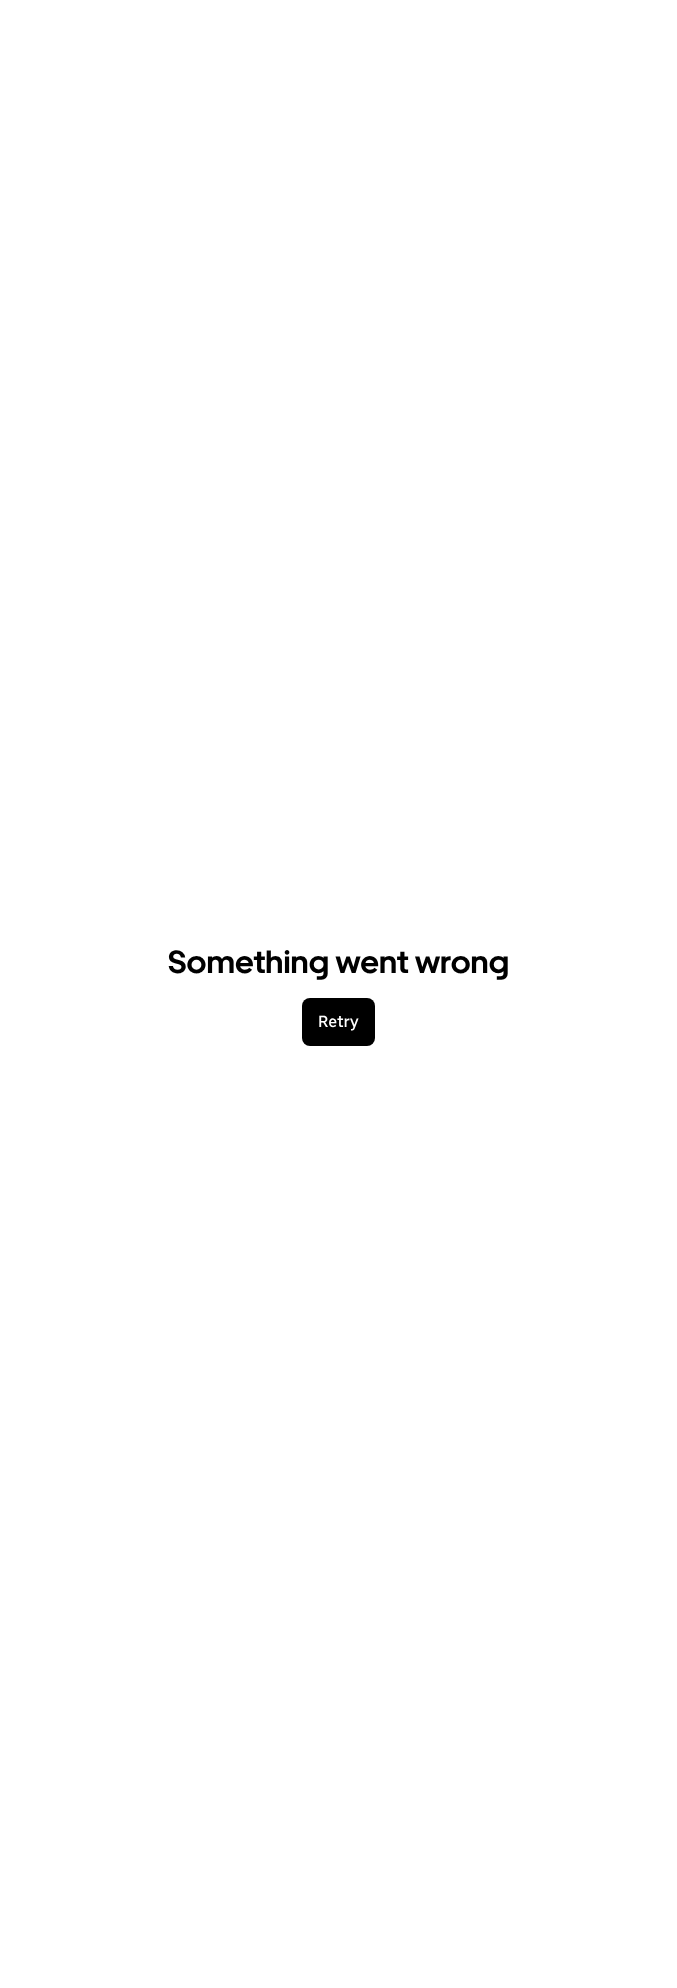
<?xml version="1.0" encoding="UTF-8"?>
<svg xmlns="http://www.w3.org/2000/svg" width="677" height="1988">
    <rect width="100%" height="100%" fill="#FFFFFF"/>
    <text x="168" y="973" font-family="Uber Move" font-size="32" font-weight="700" fill="#000000">Something went wrong</text>
    <rect x="302" y="998" width="73" height="48" rx="8" fill="#000000"/>
    <text x="318" y="1027" font-family="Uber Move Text" font-size="16" font-weight="500" fill="#FFFFFF">Retry</text>
</svg>
